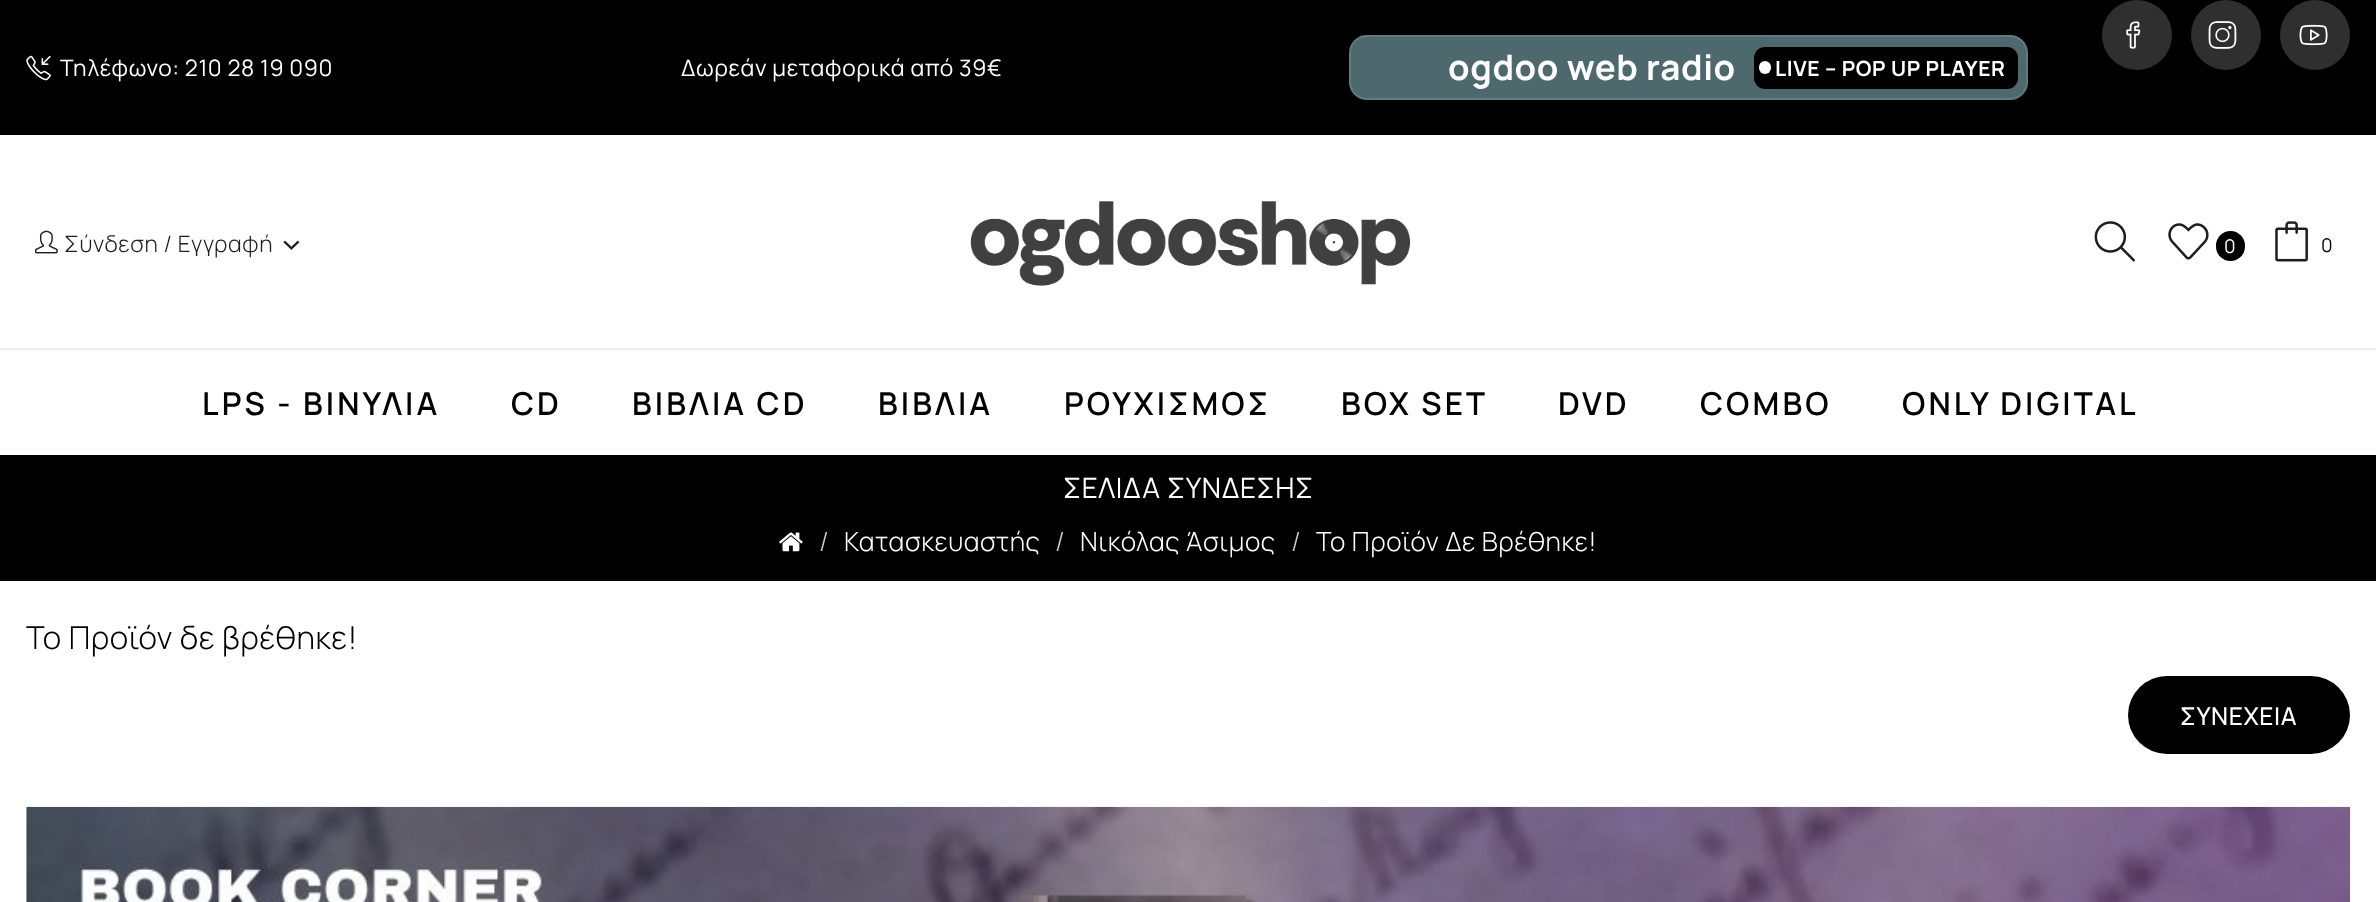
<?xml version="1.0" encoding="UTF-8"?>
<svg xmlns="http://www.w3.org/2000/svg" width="2376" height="902">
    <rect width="100%" height="100%" fill="#FFFFFF"/>
    <rect x="0" y="0" width="2376" height="135" fill="#000000"/>
    <image x="26" y="55" width="25" height="26" href="img_01.png"/>
    <text x="60" y="76" font-family="Manrope" font-size="22.75" letter-spacing="0.6" fill="#FFFFFF">Τηλέφωνο: 210 28 19 090</text>
    <text x="681" y="76" font-family="Manrope" font-size="22.75" letter-spacing="0.6" fill="#FFFFFF">Δωρεάν μεταφορικά από 39€</text>
    <rect x="1350" y="36" width="677" height="63" rx="17" fill="#4D696E" stroke="#5C7D83" stroke-width="2"/>
    <text x="1448" y="80" font-family="Manrope" font-size="35" font-weight="700" letter-spacing="0.6" fill="#FFFFFF">ogdoo web radio</text>
    <rect x="1754" y="47" width="264" height="42" rx="11" fill="#000000"/>
    <rect x="1759" y="61" width="12" height="13" rx="6" fill="#FFFFFF"/>
    <text x="1775" y="76" font-family="Manrope" font-size="21" font-weight="700" letter-spacing="0.6" fill="#FFFFFF">LIVE – POP UP PLAYER</text>
    <circle cx="2137" cy="35" r="35" fill="#2F2F30"/>
    <image x="2126" y="21" width="15" height="28" href="img_02.png"/>
    <circle cx="2226" cy="35" r="35" fill="#2F2F30"/>
    <image x="2208" y="21" width="29" height="28" href="img_03.png"/>
    <circle cx="2315" cy="35" r="35" fill="#2F2F30"/>
    <image x="2299" y="24" width="29" height="22" href="img_04.png"/>
    <image x="35" y="230" width="23" height="24" href="img_05.png"/>
    <text x="64" y="252" font-family="Manrope" font-size="22.75" font-weight="300" letter-spacing="0.6" fill="#1E1E1F">Σύνδεση / Εγγραφή</text>
    <image x="283" y="240" width="17" height="10" href="img_06.png"/>
    <image x="970" y="201" width="441" height="85" href="img_07.png"/>
    <image x="2094" y="221" width="41" height="41" href="img_08.png"/>
    <image x="2168" y="223" width="41" height="37" href="img_09.png"/>
    <rect x="2216" y="231" width="29" height="30" rx="14.5" fill="#000000"/>
    <text x="2224" y="253" font-family="Manrope" font-size="19" letter-spacing="0.6" fill="#FFFFFF">0</text>
    <image x="2275" y="221" width="33" height="41" href="img_10.png"/>
    <text x="2321" y="252" font-family="Manrope" font-size="19" fill="#000000">0</text>
    <rect x="0" y="348" width="2376" height="2" fill="#EFEFEF"/>
    <text x="202" y="415" font-family="Manrope" font-size="31.5" font-weight="600" letter-spacing="3.1" fill="#000000">LPS - ΒΙΝΥΛΙΑ</text>
    <text x="511" y="415" font-family="Manrope" font-size="31.5" font-weight="600" letter-spacing="3.1" fill="#000000">CD</text>
    <text x="632" y="415" font-family="Manrope" font-size="31.5" font-weight="600" letter-spacing="3.1" fill="#000000">ΒΙΒΛΙΑ CD</text>
    <text x="878" y="415" font-family="Manrope" font-size="31.5" font-weight="600" letter-spacing="3.1" fill="#000000">ΒΙΒΛΙΑ</text>
    <text x="1064" y="415" font-family="Manrope" font-size="31.5" font-weight="600" letter-spacing="3.1" fill="#000000">ΡΟΥΧΙΣΜΟΣ</text>
    <text x="1341" y="415" font-family="Manrope" font-size="31.5" font-weight="600" letter-spacing="3.1" fill="#000000">BOX SET</text>
    <text x="1558" y="415" font-family="Manrope" font-size="31.5" font-weight="600" letter-spacing="3.1" fill="#000000">DVD</text>
    <text x="1700" y="415" font-family="Manrope" font-size="31.5" font-weight="600" letter-spacing="3.1" fill="#000000">COMBO</text>
    <text x="1902" y="415" font-family="Manrope" font-size="31.5" font-weight="600" letter-spacing="3.1" fill="#000000">ONLY DIGITAL</text>
    <rect x="0" y="455" width="2376" height="126" fill="#000000"/>
    <text x="1063" y="498" font-family="Manrope" font-size="28" letter-spacing="0.6" fill="#FFFFFF">ΣΕΛΙΔΑ ΣΥΝΔΕΣΗΣ</text>
    <image x="779" y="532" width="24" height="20" href="img_11.png"/>
    <text x="819" y="551" font-family="Manrope" font-size="26.25" font-weight="300" letter-spacing="0.6" fill="#CCCCCC">/</text>
    <text x="844" y="551" font-family="Manrope" font-size="26.25" font-weight="300" letter-spacing="0.6" fill="#FFFFFF">Κατασκευαστής</text>
    <text x="1055" y="551" font-family="Manrope" font-size="26.25" font-weight="300" letter-spacing="0.6" fill="#CCCCCC">/</text>
    <text x="1080" y="551" font-family="Manrope" font-size="26.25" font-weight="300" letter-spacing="0.6" fill="#FFFFFF">Νικόλας Άσιμος</text>
    <text x="1291" y="551" font-family="Manrope" font-size="26.25" font-weight="300" letter-spacing="0.6" fill="#CCCCCC">/</text>
    <text x="1316" y="551" font-family="Manrope" font-size="26.25" font-weight="300" letter-spacing="0.6" fill="#FFFFFF">Το Προϊόν Δε Βρέθηκε!</text>
    <text x="26" y="649" font-family="Manrope" font-size="31.5" font-weight="300" letter-spacing="0.6" fill="#000000">Το Προϊόν δε βρέθηκε!</text>
    <rect x="2128" y="676" width="222" height="78" rx="39" fill="#000000"/>
    <text x="2180" y="725" font-family="Manrope" font-size="24.5" font-weight="500" letter-spacing="0.6" fill="#FFFFFF">ΣΥΝΕΧΕΙΑ</text>
    <image x="26" y="806" width="2325" height="96" href="img_12.png"/>
</svg>
